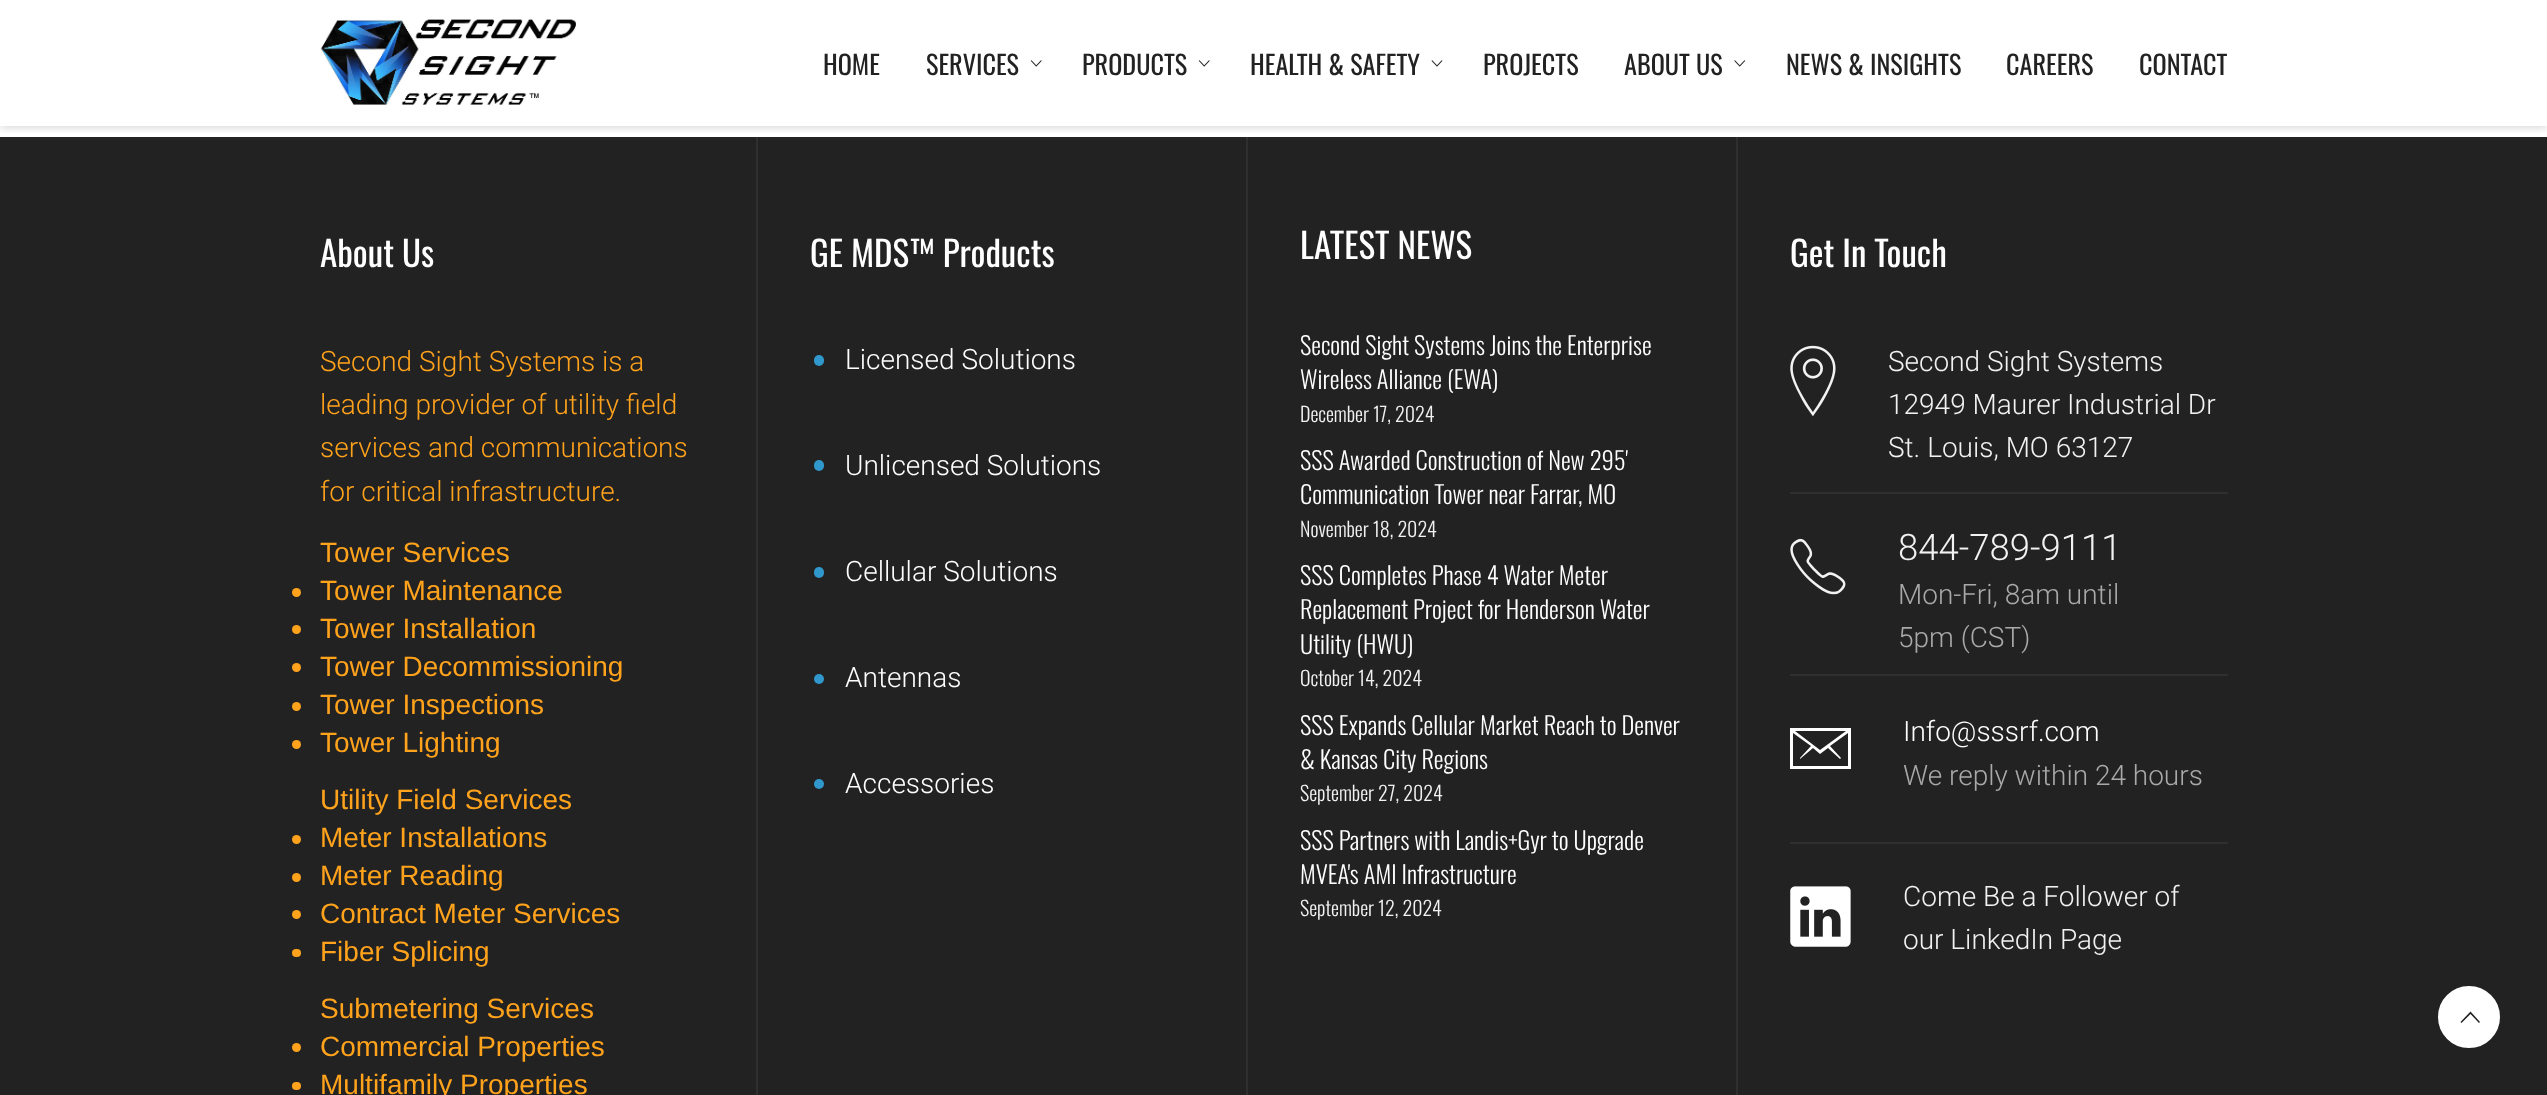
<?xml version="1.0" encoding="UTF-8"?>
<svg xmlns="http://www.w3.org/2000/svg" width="2547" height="1095">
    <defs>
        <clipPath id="clip1"><rect x="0" y="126" width="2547" height="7"/></clipPath>
        <filter id="blur1" x="-50%" y="-200%" width="200%" height="500%"><feGaussianBlur stdDeviation="4.5"/></filter>
    </defs>
    <rect width="100%" height="100%" fill="#FFFFFF"/>
    <rect x="0" y="137" width="2547" height="958" fill="#222222"/>
    <rect x="756" y="137" width="2" height="958" fill="#2F2F2F"/>
    <rect x="1246" y="137" width="2" height="958" fill="#2F2F2F"/>
    <rect x="1736" y="137" width="2" height="958" fill="#2F2F2F"/>
    <g clip-path="url(#clip1)">
        <rect x="0" y="2" width="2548" height="126" fill="#000000" fill-opacity="0.15" filter="url(#blur1)"/>
    </g>
    <image x="320" y="19" width="256" height="86" href="img_01.png"/>
    <text x="823" y="75" font-family="Oswald" font-size="26.25" fill="#222222">HOME</text>
    <text x="926" y="75" font-family="Oswald" font-size="26.25" fill="#222222">SERVICES</text>
    <image x="1030" y="60" width="12" height="7" href="img_02.png"/>
    <text x="1082" y="75" font-family="Oswald" font-size="26.25" fill="#222222">PRODUCTS</text>
    <image x="1198" y="60" width="12" height="7" href="img_02.png"/>
    <text x="1250" y="75" font-family="Oswald" font-size="26.25" fill="#222222">HEALTH &amp; SAFETY</text>
    <image x="1431" y="60" width="12" height="7" href="img_03.png"/>
    <text x="1483" y="75" font-family="Oswald" font-size="26.25" fill="#222222">PROJECTS</text>
    <text x="1624" y="75" font-family="Oswald" font-size="26.25" fill="#222222">ABOUT US</text>
    <image x="1734" y="60" width="12" height="7" href="img_04.png"/>
    <text x="1786" y="75" font-family="Oswald" font-size="26.25" fill="#222222">NEWS &amp; INSIGHTS</text>
    <text x="2006" y="75" font-family="Oswald" font-size="26.25" fill="#222222">CAREERS</text>
    <text x="2139" y="75" font-family="Oswald" font-size="26.25" fill="#222222">CONTACT</text>
    <text x="320" y="267" font-family="Oswald" font-size="35" fill="#FFFFFF">About Us</text>
    <text font-family="Roboto" font-size="28" font-weight="300" fill="#FFA21C">
        <tspan x="320" y="371">Second Sight Systems is a</tspan>
        <tspan x="320" y="414">leading provider of utility field</tspan>
        <tspan x="320" y="457">services and communications</tspan>
        <tspan x="320" y="501">for critical infrastructure.</tspan>
    </text>
    <text x="320" y="562" font-family="Liberation Sans" font-size="28" fill="#FFA21C">Tower Services</text>
    <circle cx="296.5" cy="592.5" r="4.5" fill="#FFA21C"/>
    <text x="320" y="600" font-family="Liberation Sans" font-size="28" fill="#FFA21C">Tower Maintenance</text>
    <circle cx="296.5" cy="629.5" r="4.5" fill="#FFA21C"/>
    <text x="320" y="638" font-family="Liberation Sans" font-size="28" fill="#FFA21C">Tower Installation</text>
    <circle cx="296.5" cy="667.5" r="4.5" fill="#FFA21C"/>
    <text x="320" y="676" font-family="Liberation Sans" font-size="28" fill="#FFA21C">Tower Decommissioning</text>
    <circle cx="296.5" cy="706.5" r="4.5" fill="#FFA21C"/>
    <text x="320" y="714" font-family="Liberation Sans" font-size="28" fill="#FFA21C">Tower Inspections</text>
    <circle cx="296.5" cy="744.5" r="4.5" fill="#FFA21C"/>
    <text x="320" y="752" font-family="Liberation Sans" font-size="28" fill="#FFA21C">Tower Lighting</text>
    <text x="320" y="809" font-family="Liberation Sans" font-size="28" fill="#FFA21C">Utility Field Services</text>
    <circle cx="296.5" cy="839.5" r="4.5" fill="#FFA21C"/>
    <text x="320" y="847" font-family="Liberation Sans" font-size="28" fill="#FFA21C">Meter Installations</text>
    <circle cx="296.5" cy="877.5" r="4.5" fill="#FFA21C"/>
    <text x="320" y="885" font-family="Liberation Sans" font-size="28" fill="#FFA21C">Meter Reading</text>
    <circle cx="296.5" cy="914.5" r="4.5" fill="#FFA21C"/>
    <text x="320" y="923" font-family="Liberation Sans" font-size="28" fill="#FFA21C">Contract Meter Services</text>
    <rect x="292" y="949" width="9" height="8" rx="4" fill="#FFA21C"/>
    <text x="320" y="961" font-family="Liberation Sans" font-size="28" fill="#FFA21C">Fiber Splicing</text>
    <text x="320" y="1018" font-family="Liberation Sans" font-size="28" fill="#FFA21C">Submetering Services</text>
    <circle cx="296.5" cy="1047.5" r="4.5" fill="#FFA21C"/>
    <text x="320" y="1056" font-family="Liberation Sans" font-size="28" fill="#FFA21C">Commercial Properties</text>
    <rect x="292" y="1082" width="9" height="8" rx="4" fill="#FFA21C"/>
    <text x="320" y="1094" font-family="Liberation Sans" font-size="28" fill="#FFA21C">Multifamily Properties</text>
    <text x="810" y="267" font-family="Oswald" font-size="35" fill="#FFFFFF">GE MDS™ Products</text>
    <rect x="814" y="355" width="10" height="11" rx="5" fill="#3098CD"/>
    <text x="845" y="369" font-family="Roboto" font-size="28" font-weight="300" fill="#FFFFFF">Licensed Solutions</text>
    <rect x="814" y="460" width="10" height="11" rx="5" fill="#3098CD"/>
    <text x="845" y="475" font-family="Roboto" font-size="28" font-weight="300" fill="#FFFFFF">Unlicensed Solutions</text>
    <rect x="814" y="567" width="10" height="11" rx="5" fill="#3098CD"/>
    <text x="845" y="581" font-family="Roboto" font-size="28" font-weight="300" fill="#FFFFFF">Cellular Solutions</text>
    <circle cx="819" cy="679" r="5" fill="#3098CD"/>
    <text x="845" y="687" font-family="Roboto" font-size="28" font-weight="300" fill="#FFFFFF">Antennas</text>
    <circle cx="819" cy="784" r="5" fill="#3098CD"/>
    <text x="845" y="793" font-family="Roboto" font-size="28" font-weight="300" fill="#FFFFFF">Accessories</text>
    <text x="1300" y="259" font-family="Oswald" font-size="35" fill="#FFFFFF">LATEST NEWS</text>
    <text font-family="Oswald" font-size="24.5" font-weight="300" fill="#FFFFFF">
        <tspan x="1300" y="355">Second Sight Systems Joins the Enterprise</tspan>
        <tspan x="1300" y="389">Wireless Alliance (EWA)</tspan>
    </text>
    <text x="1300" y="422" font-family="Oswald" font-size="20" font-weight="300" fill="#F2F2F2">December 17, 2024</text>
    <text font-family="Oswald" font-size="24.5" font-weight="300" fill="#FFFFFF">
        <tspan x="1300" y="470">SSS Awarded Construction of New 295'</tspan>
        <tspan x="1300" y="504">Communication Tower near Farrar, MO</tspan>
    </text>
    <text x="1300" y="537" font-family="Oswald" font-size="20" font-weight="300" fill="#F2F2F2">November 18, 2024</text>
    <text font-family="Oswald" font-size="24.5" font-weight="300" fill="#FFFFFF">
        <tspan x="1300" y="585">SSS Completes Phase 4 Water Meter</tspan>
        <tspan x="1300" y="619">Replacement Project for Henderson Water</tspan>
        <tspan x="1300" y="654">Utility (HWU)</tspan>
    </text>
    <text x="1300" y="686" font-family="Oswald" font-size="20" font-weight="300" fill="#F2F2F2">October 14, 2024</text>
    <text font-family="Oswald" font-size="24.5" font-weight="300" fill="#FFFFFF">
        <tspan x="1300" y="735">SSS Expands Cellular Market Reach to Denver</tspan>
        <tspan x="1300" y="769">&amp; Kansas City Regions</tspan>
    </text>
    <text x="1300" y="801" font-family="Oswald" font-size="20" font-weight="300" fill="#F2F2F2">September 27, 2024</text>
    <text font-family="Oswald" font-size="24.5" font-weight="300" fill="#FFFFFF">
        <tspan x="1300" y="850">SSS Partners with Landis+Gyr to Upgrade</tspan>
        <tspan x="1300" y="884">MVEA's AMI Infrastructure</tspan>
    </text>
    <text x="1300" y="916" font-family="Oswald" font-size="20" font-weight="300" fill="#F2F2F2">September 12, 2024</text>
    <text x="1790" y="267" font-family="Oswald" font-size="35" fill="#FFFFFF">Get In Touch</text>
    <image x="1790" y="345" width="46" height="72" href="img_05.png"/>
    <text font-family="Roboto" font-size="28" font-weight="300" fill="#F2F2F2">
        <tspan x="1888" y="371">Second Sight Systems</tspan>
        <tspan x="1888" y="414">12949 Maurer Industrial Dr</tspan>
        <tspan x="1888" y="457">St. Louis, MO 63127</tspan>
    </text>
    <rect x="1790" y="492" width="438" height="2" fill="#2F2F2F"/>
    <image x="1790" y="538" width="56" height="57" href="img_06.png"/>
    <text x="1898" y="560" font-family="Roboto" font-size="36.5" font-weight="300" fill="#F2F2F2">844-789-9111</text>
    <text font-family="Roboto" font-size="28" font-weight="300" fill="#A9A9A9">
        <tspan x="1898" y="604">Mon-Fri, 8am until</tspan>
        <tspan x="1898" y="647">5pm (CST)</tspan>
    </text>
    <rect x="1790" y="674" width="438" height="2" fill="#2F2F2F"/>
    <path d="M 1790 728 H 1851 V 769 H 1790 Z M 1820 750 L 1846 731 H 1795 Z M 1793 766 H 1848 V 733 L 1830 746 L 1841 758 L 1840 759 L 1828 748 L 1820 754 L 1813 748 L 1800 759 V 758 L 1811 746 L 1793 733 Z" fill="#FFFFFF"/>
    <text x="1903" y="741" font-family="Roboto" font-size="28" font-weight="300" fill="#FFFFFF">Info@sssrf.com</text>
    <text x="1903" y="785" font-family="Roboto" font-size="28" font-weight="300" fill="#A9A9A9">We reply within 24 hours</text>
    <rect x="1790" y="842" width="438" height="2" fill="#2F2F2F"/>
    <image x="1790" y="886" width="61" height="61" href="img_07.png"/>
    <text font-family="Roboto" font-size="28" font-weight="300" fill="#F2F2F2">
        <tspan x="1903" y="906">Come Be a Follower of</tspan>
        <tspan x="1903" y="949">our LinkedIn Page</tspan>
    </text>
    <circle cx="2469" cy="1017" r="33" fill="#FFFFFF" stroke="#222222" stroke-width="4"/>
    <path d="M 2479 1023 L 2470.5 1014 L 2461.5 1023 L 2460.5 1022 L 2470.5 1011.5 L 2480 1022 Z" fill="#222222"/>
</svg>
